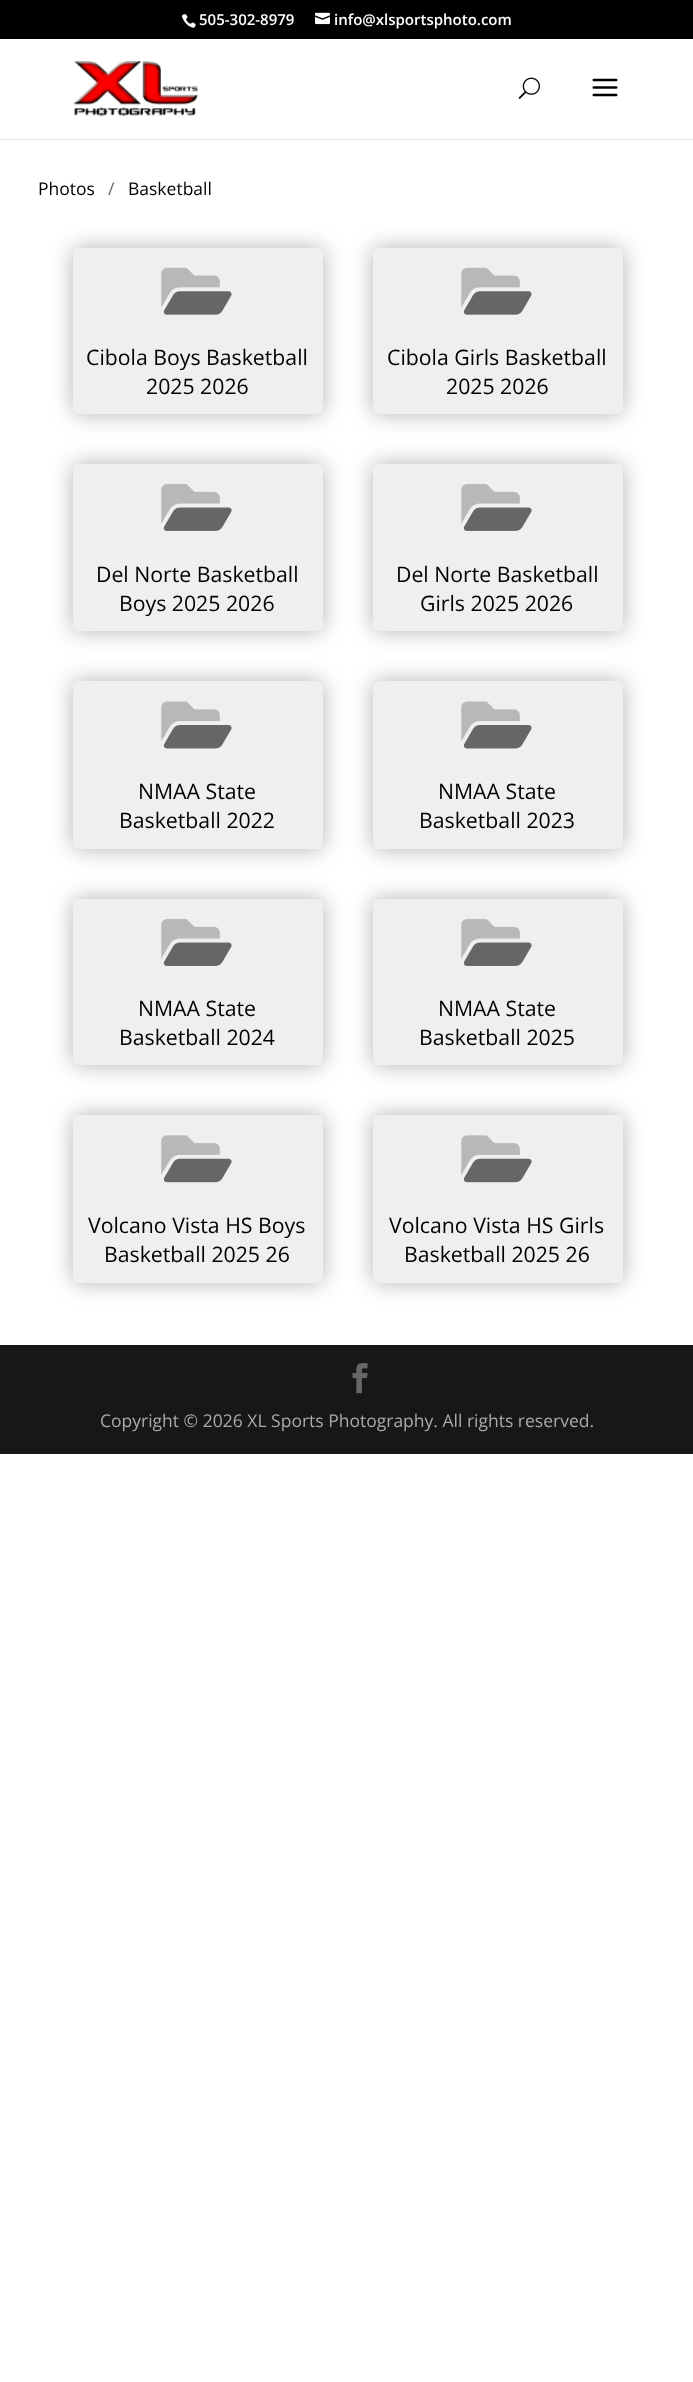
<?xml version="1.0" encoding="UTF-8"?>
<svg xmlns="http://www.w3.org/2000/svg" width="693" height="2382">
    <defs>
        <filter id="blur1" x="-50%" y="-200%" width="200%" height="500%"><feGaussianBlur stdDeviation="11"/></filter>
    </defs>
    <rect width="100%" height="100%" fill="#FFFFFF"/>
    <rect x="0" y="0" width="693" height="39" fill="#000000"/>
    <image x="181" y="14" width="15" height="14" href="img_01.png"/>
    <text x="199" y="25" font-family="Open Sans" font-size="15" font-weight="600" fill="#FFFFFF">505-302-8979</text>
    <image x="315" y="12" width="15" height="13" href="img_02.png"/>
    <text x="334" y="25" font-family="Open Sans" font-size="15" font-weight="600" fill="#FFFFFF">info@xlsportsphoto.com</text>
    <path d="M 0 139 V 140 H 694 V 40 V 139 Z" fill="#E6E6E6"/>
    <image x="73" y="61" width="125" height="56" href="img_03.png"/>
    <image x="518" y="77" width="22" height="22" href="img_04.png"/>
    <image x="592" y="78" width="26" height="19" href="img_05.png"/>
    <text x="38" y="195" font-family="Open Sans" font-size="17.5" fill="#000000">Photos</text>
    <text x="108" y="195" font-family="Open Sans" font-size="17.5" fill="#666666">/</text>
    <text x="128" y="195" font-family="Open Sans" font-size="17.5" fill="#000000">Basketball</text>
    <rect x="73" y="248" width="250" height="166" rx="6" fill="#000000" fill-opacity="0.3" filter="url(#blur1)"/>
    <rect x="73" y="248" width="250" height="166" rx="6" fill="#EFEFEF"/>
    <image x="161" y="267" width="71" height="48" href="img_06.png"/>
    <text x="86" y="365" font-family="Open Sans" font-size="21.25" fill="#000000">Cibola Boys Basketball</text>
    <text x="146" y="394" font-family="Open Sans" font-size="21.25" fill="#000000">2025 2026</text>
    <rect x="373" y="248" width="250" height="166" rx="6" fill="#000000" fill-opacity="0.3" filter="url(#blur1)"/>
    <rect x="373" y="248" width="250" height="166" rx="6" fill="#EFEFEF"/>
    <image x="461" y="267" width="71" height="48" href="img_06.png"/>
    <text x="387" y="365" font-family="Open Sans" font-size="21.25" fill="#000000">Cibola Girls Basketball</text>
    <text x="446" y="394" font-family="Open Sans" font-size="21.25" fill="#000000">2025 2026</text>
    <rect x="73" y="464" width="250" height="167" rx="6" fill="#000000" fill-opacity="0.3" filter="url(#blur1)"/>
    <rect x="73" y="464" width="250" height="167" rx="6" fill="#EFEFEF"/>
    <image x="161" y="484" width="71" height="47" href="img_07.png"/>
    <text x="96" y="582" font-family="Open Sans" font-size="21.25" fill="#000000">Del Norte Basketball</text>
    <text x="119" y="611" font-family="Open Sans" font-size="21.25" fill="#000000">Boys 2025 2026</text>
    <rect x="373" y="464" width="250" height="167" rx="6" fill="#000000" fill-opacity="0.3" filter="url(#blur1)"/>
    <rect x="373" y="464" width="250" height="167" rx="6" fill="#EFEFEF"/>
    <image x="461" y="484" width="71" height="47" href="img_07.png"/>
    <text x="396" y="582" font-family="Open Sans" font-size="21.25" fill="#000000">Del Norte Basketball</text>
    <text x="420" y="611" font-family="Open Sans" font-size="21.25" fill="#000000">Girls 2025 2026</text>
    <rect x="73" y="681" width="250" height="168" rx="6" fill="#000000" fill-opacity="0.3" filter="url(#blur1)"/>
    <rect x="73" y="681" width="250" height="168" rx="6" fill="#EFEFEF"/>
    <image x="161" y="701" width="71" height="48" href="img_08.png"/>
    <text x="138" y="799" font-family="Open Sans" font-size="21.25" fill="#000000">NMAA State</text>
    <text x="119" y="828" font-family="Open Sans" font-size="21.25" fill="#000000">Basketball 2022</text>
    <rect x="373" y="681" width="250" height="168" rx="6" fill="#000000" fill-opacity="0.3" filter="url(#blur1)"/>
    <rect x="373" y="681" width="250" height="168" rx="6" fill="#EFEFEF"/>
    <image x="461" y="701" width="71" height="48" href="img_08.png"/>
    <text x="438" y="799" font-family="Open Sans" font-size="21.25" fill="#000000">NMAA State</text>
    <text x="419" y="828" font-family="Open Sans" font-size="21.25" fill="#000000">Basketball 2023</text>
    <rect x="73" y="899" width="250" height="166" rx="6" fill="#000000" fill-opacity="0.3" filter="url(#blur1)"/>
    <rect x="73" y="899" width="250" height="166" rx="6" fill="#EFEFEF"/>
    <image x="161" y="919" width="71" height="47" href="img_07.png"/>
    <text x="138" y="1016" font-family="Open Sans" font-size="21.25" fill="#000000">NMAA State</text>
    <text x="119" y="1045" font-family="Open Sans" font-size="21.25" fill="#000000">Basketball 2024</text>
    <rect x="373" y="899" width="250" height="166" rx="6" fill="#000000" fill-opacity="0.3" filter="url(#blur1)"/>
    <rect x="373" y="899" width="250" height="166" rx="6" fill="#EFEFEF"/>
    <image x="461" y="919" width="71" height="47" href="img_07.png"/>
    <text x="438" y="1016" font-family="Open Sans" font-size="21.25" fill="#000000">NMAA State</text>
    <text x="419" y="1045" font-family="Open Sans" font-size="21.25" fill="#000000">Basketball 2025</text>
    <rect x="73" y="1115" width="250" height="168" rx="6" fill="#000000" fill-opacity="0.3" filter="url(#blur1)"/>
    <rect x="73" y="1115" width="250" height="168" rx="6" fill="#EFEFEF"/>
    <image x="161" y="1135" width="71" height="48" href="img_09.png"/>
    <text x="88" y="1233" font-family="Open Sans" font-size="21.25" fill="#000000">Volcano Vista HS Boys</text>
    <text x="104" y="1262" font-family="Open Sans" font-size="21.25" fill="#000000">Basketball 2025 26</text>
    <rect x="373" y="1115" width="250" height="168" rx="6" fill="#000000" fill-opacity="0.3" filter="url(#blur1)"/>
    <rect x="373" y="1115" width="250" height="168" rx="6" fill="#EFEFEF"/>
    <image x="461" y="1135" width="71" height="48" href="img_09.png"/>
    <text x="389" y="1233" font-family="Open Sans" font-size="21.25" fill="#000000">Volcano Vista HS Girls</text>
    <text x="404" y="1262" font-family="Open Sans" font-size="21.25" fill="#000000">Basketball 2025 26</text>
    <rect x="0" y="1345" width="693" height="109" fill="#171717"/>
    <image x="352" y="1363" width="16" height="31" href="img_10.png"/>
    <text x="100" y="1427" font-family="Open Sans" font-size="17.5" fill="#AAAAAA">Copyright © 2026 XL Sports Photography. All rights reserved.</text>
</svg>
